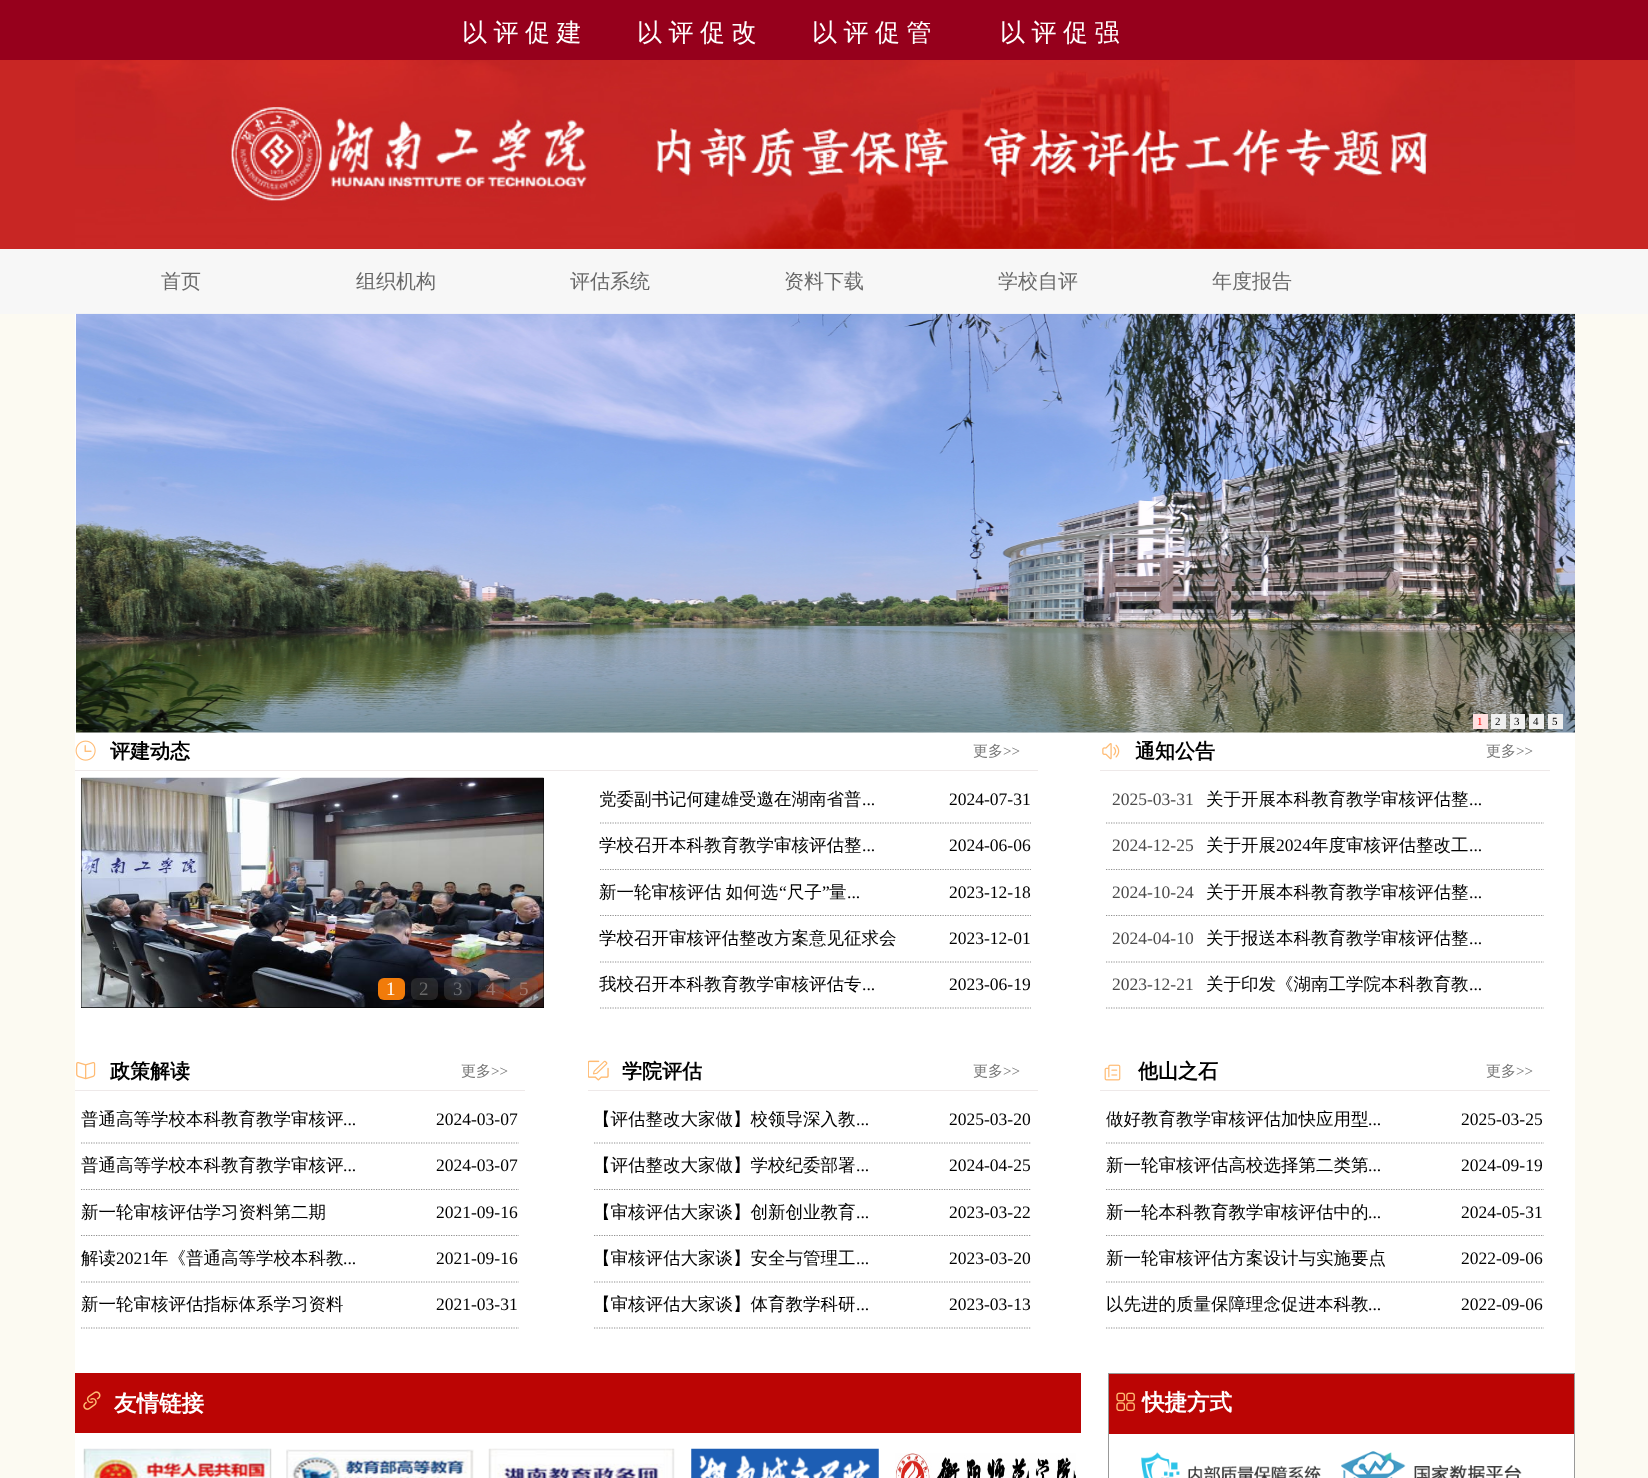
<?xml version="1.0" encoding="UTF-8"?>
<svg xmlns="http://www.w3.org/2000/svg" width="1648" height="1478">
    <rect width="100%" height="100%" fill="#C82624"/>
    <rect x="0" y="0" width="1648" height="60" fill="#96001C"/>
    <text x="462" y="41" word-spacing="-1" font-family="WenQuanYi Zen Hei" font-size="25" font-weight="500" fill="#FFFFFF">以 评 促 建</text>
    <text x="637" y="41" word-spacing="-1" font-family="WenQuanYi Zen Hei" font-size="25" font-weight="500" fill="#FFFFFF">以 评 促 改</text>
    <text x="812" y="41" word-spacing="-1" font-family="WenQuanYi Zen Hei" font-size="25" font-weight="500" fill="#FFFFFF">以 评 促 管</text>
    <text x="1000" y="41" word-spacing="-1" font-family="WenQuanYi Zen Hei" font-size="25" font-weight="500" fill="#FFFFFF">以 评 促 强</text>
    <image x="75" y="60" width="1500" height="189" href="img_01.png"/>
    <rect x="0" y="249" width="1648" height="65" fill="#F7F7F7"/>
    <text x="161" y="288" font-family="WenQuanYi Zen Hei" font-size="20" font-weight="500" fill="#696969">首页</text>
    <text x="356" y="288" font-family="WenQuanYi Zen Hei" font-size="20" font-weight="500" fill="#696969">组织机构</text>
    <text x="570" y="288" font-family="WenQuanYi Zen Hei" font-size="20" font-weight="500" fill="#696969">评估系统</text>
    <text x="784" y="288" font-family="WenQuanYi Zen Hei" font-size="20" font-weight="500" fill="#696969">资料下载</text>
    <text x="998" y="288" font-family="WenQuanYi Zen Hei" font-size="20" font-weight="500" fill="#696969">学校自评</text>
    <text x="1212" y="288" font-family="WenQuanYi Zen Hei" font-size="20" font-weight="500" fill="#696969">年度报告</text>
    <rect x="0" y="314" width="1648" height="1164" fill="#FCFAF2"/>
    <rect x="75" y="314" width="1500" height="1164" fill="#FFFFFF"/>
    <image x="76" y="313" width="1499" height="420" href="img_02.png"/>
    <rect x="1473" y="714" width="15" height="15" fill="#FFE1E1"/>
    <text x="1477" y="725" font-family="Liberation Serif" font-size="11" fill="#FF0000">1</text>
    <rect x="1491" y="714" width="15" height="15" fill="#F0F0F0"/>
    <text x="1495" y="725" font-family="Liberation Serif" font-size="11" fill="#000000">2</text>
    <rect x="1510" y="714" width="15" height="15" fill="#F0F0F0"/>
    <text x="1514" y="725" font-family="Liberation Serif" font-size="11" fill="#000000">3</text>
    <rect x="1529" y="714" width="15" height="15" fill="#F0F0F0"/>
    <text x="1533" y="725" font-family="Liberation Serif" font-size="11" fill="#000000">4</text>
    <rect x="1548" y="714" width="15" height="15" fill="#F0F0F0"/>
    <text x="1552" y="725" font-family="Liberation Serif" font-size="11" fill="#000000">5</text>
    <rect x="75" y="770" width="963" height="1" fill="#EEE9E9"/>
    <image x="75" y="740" width="21" height="21" href="img_03.png"/>
    <text x="110" y="758" font-family="WenQuanYi Zen Hei" font-size="20" font-weight="700" fill="#000000">评建动态</text>
    <text x="973" y="756" font-family="WenQuanYi Zen Hei" font-size="15" font-weight="500" fill="#777777">更多</text>
    <text x="1003" y="756" font-family="Liberation Serif" font-size="15" fill="#777777">&gt;&gt;</text>
    <rect x="81" y="778" width="463" height="230" fill="#000000"/>
    <image x="81" y="777" width="463" height="231" href="img_04.png"/>
    <rect x="378" y="978" width="27" height="22" rx="6" fill="#F17B0A"/>
    <text x="386" y="995" font-family="Liberation Serif" font-size="19" fill="#FFFFFF">1</text>
    <rect x="411" y="978" width="27" height="22" rx="6" fill="#666666" fill-opacity="0.3"/>
    <text x="419" y="995" font-family="Liberation Serif" font-size="19" fill="#696969">2</text>
    <rect x="444" y="978" width="27" height="22" rx="6" fill="#666666" fill-opacity="0.3"/>
    <text x="453" y="995" font-family="Liberation Serif" font-size="19" fill="#6B6D72">3</text>
    <rect x="478" y="978" width="26" height="22" rx="6" fill="#666666" fill-opacity="0.3"/>
    <text x="486" y="995" font-family="Liberation Serif" font-size="19" fill="#997770">4</text>
    <rect x="510" y="978" width="28" height="22" rx="6" fill="#666666" fill-opacity="0.3"/>
    <text x="519" y="995" font-family="Liberation Serif" font-size="19" fill="#A37D71">5</text>
    <path d="M 600 823 H 1031" fill="none" stroke="#909090" stroke-width="1.2" stroke-dasharray="1.25 1.25"/>
    <text x="599" y="805" font-family="WenQuanYi Zen Hei" font-size="17.5" font-weight="500" fill="#000000">党委副书记何建雄受邀在湖南省普</text>
    <text x="862" y="805" font-family="Liberation Serif" font-size="17.5" fill="#000000">...</text>
    <text x="949" y="805" font-family="Liberation Serif" font-size="17.5" fill="#000000">2024-07-31</text>
    <path d="M 600 869.5 H 1031" fill="none" stroke="#909090" stroke-width="1.2" stroke-dasharray="1.25 1.25"/>
    <text x="599" y="851" font-family="WenQuanYi Zen Hei" font-size="17.5" font-weight="500" fill="#000000">学校召开本科教育教学审核评估整</text>
    <text x="862" y="851" font-family="Liberation Serif" font-size="17.5" fill="#000000">...</text>
    <text x="949" y="851" font-family="Liberation Serif" font-size="17.5" fill="#000000">2024-06-06</text>
    <path d="M 600 915.5 H 1031" fill="none" stroke="#909090" stroke-width="1.2" stroke-dasharray="1.25 1.25"/>
    <text x="599" y="898" word-spacing="-1" font-family="WenQuanYi Zen Hei" font-size="17.5" font-weight="500" fill="#000000">新一轮审核评估 如何选</text>
    <text x="779" y="898" font-family="Liberation Serif" font-size="17.5" fill="#000000">“</text>
    <text x="787" y="898" font-family="WenQuanYi Zen Hei" font-size="17.5" font-weight="500" fill="#000000">尺子</text>
    <text x="822" y="898" font-family="Liberation Serif" font-size="17.5" fill="#000000">”</text>
    <text x="829" y="898" font-family="WenQuanYi Zen Hei" font-size="17.5" font-weight="500" fill="#000000">量</text>
    <text x="847" y="898" font-family="Liberation Serif" font-size="17.5" fill="#000000">...</text>
    <text x="949" y="898" font-family="Liberation Serif" font-size="17.5" fill="#000000">2023-12-18</text>
    <path d="M 600 962 H 1031" fill="none" stroke="#909090" stroke-width="1.2" stroke-dasharray="1.25 1.25"/>
    <text x="599" y="944" font-family="WenQuanYi Zen Hei" font-size="17.5" font-weight="500" fill="#000000">学校召开审核评估整改方案意见征求会</text>
    <text x="949" y="944" font-family="Liberation Serif" font-size="17.5" fill="#000000">2023-12-01</text>
    <path d="M 600 1008 H 1031" fill="none" stroke="#909090" stroke-width="1.2" stroke-dasharray="1.25 1.25"/>
    <text x="599" y="990" font-family="WenQuanYi Zen Hei" font-size="17.5" font-weight="500" fill="#000000">我校召开本科教育教学审核评估专</text>
    <text x="862" y="990" font-family="Liberation Serif" font-size="17.5" fill="#000000">...</text>
    <text x="949" y="990" font-family="Liberation Serif" font-size="17.5" fill="#000000">2023-06-19</text>
    <rect x="1100" y="770" width="450" height="1" fill="#EEE9E9"/>
    <image x="1102" y="743" width="18" height="17" href="img_05.png"/>
    <text x="1135" y="758" font-family="WenQuanYi Zen Hei" font-size="20" font-weight="700" fill="#000000">通知公告</text>
    <text x="1486" y="756" font-family="WenQuanYi Zen Hei" font-size="15" font-weight="500" fill="#777777">更多</text>
    <text x="1516" y="756" font-family="Liberation Serif" font-size="15" fill="#777777">&gt;&gt;</text>
    <path d="M 1106 823 H 1544" fill="none" stroke="#909090" stroke-width="1.2" stroke-dasharray="1.25 1.25"/>
    <text x="1112" y="805" font-family="Liberation Serif" font-size="17.5" fill="#4B4B4B">2025-03-31</text>
    <text x="1206" y="805" font-family="WenQuanYi Zen Hei" font-size="17.5" font-weight="500" fill="#000000">关于开展本科教育教学审核评估整</text>
    <text x="1469" y="805" font-family="Liberation Serif" font-size="17.5" fill="#000000">...</text>
    <path d="M 1106 869.5 H 1544" fill="none" stroke="#909090" stroke-width="1.2" stroke-dasharray="1.25 1.25"/>
    <text x="1112" y="851" font-family="Liberation Serif" font-size="17.5" fill="#4B4B4B">2024-12-25</text>
    <text x="1206" y="851" font-family="WenQuanYi Zen Hei" font-size="17.5" font-weight="500" fill="#000000">关于开展</text>
    <text x="1276" y="851" font-family="Liberation Serif" font-size="17.5" fill="#000000">2024</text>
    <text x="1311" y="851" font-family="WenQuanYi Zen Hei" font-size="17.5" font-weight="500" fill="#000000">年度审核评估整改工</text>
    <text x="1469" y="851" font-family="Liberation Serif" font-size="17.5" fill="#000000">...</text>
    <path d="M 1106 915.5 H 1544" fill="none" stroke="#909090" stroke-width="1.2" stroke-dasharray="1.25 1.25"/>
    <text x="1112" y="898" font-family="Liberation Serif" font-size="17.5" fill="#4B4B4B">2024-10-24</text>
    <text x="1206" y="898" font-family="WenQuanYi Zen Hei" font-size="17.5" font-weight="500" fill="#000000">关于开展本科教育教学审核评估整</text>
    <text x="1469" y="898" font-family="Liberation Serif" font-size="17.5" fill="#000000">...</text>
    <path d="M 1106 962 H 1544" fill="none" stroke="#909090" stroke-width="1.2" stroke-dasharray="1.25 1.25"/>
    <text x="1112" y="944" font-family="Liberation Serif" font-size="17.5" fill="#4B4B4B">2024-04-10</text>
    <text x="1206" y="944" font-family="WenQuanYi Zen Hei" font-size="17.5" font-weight="500" fill="#000000">关于报送本科教育教学审核评估整</text>
    <text x="1469" y="944" font-family="Liberation Serif" font-size="17.5" fill="#000000">...</text>
    <path d="M 1106 1008 H 1544" fill="none" stroke="#909090" stroke-width="1.2" stroke-dasharray="1.25 1.25"/>
    <text x="1112" y="990" font-family="Liberation Serif" font-size="17.5" fill="#4B4B4B">2023-12-21</text>
    <text x="1206" y="990" font-family="WenQuanYi Zen Hei" font-size="17.5" font-weight="500" fill="#000000">关于印发《湖南工学院本科教育教</text>
    <text x="1469" y="990" font-family="Liberation Serif" font-size="17.5" fill="#000000">...</text>
    <rect x="75" y="1090" width="450" height="1" fill="#EEE9E9"/>
    <image x="76" y="1062" width="20" height="18" href="img_06.png"/>
    <text x="110" y="1078" font-family="WenQuanYi Zen Hei" font-size="20" font-weight="700" fill="#000000">政策解读</text>
    <text x="461" y="1076" font-family="WenQuanYi Zen Hei" font-size="15" font-weight="500" fill="#777777">更多</text>
    <text x="491" y="1076" font-family="Liberation Serif" font-size="15" fill="#777777">&gt;&gt;</text>
    <path d="M 81 1143 H 519" fill="none" stroke="#909090" stroke-width="1.2" stroke-dasharray="1.25 1.25"/>
    <text x="81" y="1125" font-family="WenQuanYi Zen Hei" font-size="17.5" font-weight="500" fill="#000000">普通高等学校本科教育教学审核评</text>
    <text x="343" y="1125" font-family="Liberation Serif" font-size="17.5" fill="#000000">...</text>
    <text x="436" y="1125" font-family="Liberation Serif" font-size="17.5" fill="#000000">2024-03-07</text>
    <path d="M 81 1189.5 H 519" fill="none" stroke="#909090" stroke-width="1.2" stroke-dasharray="1.25 1.25"/>
    <text x="81" y="1171" font-family="WenQuanYi Zen Hei" font-size="17.5" font-weight="500" fill="#000000">普通高等学校本科教育教学审核评</text>
    <text x="343" y="1171" font-family="Liberation Serif" font-size="17.5" fill="#000000">...</text>
    <text x="436" y="1171" font-family="Liberation Serif" font-size="17.5" fill="#000000">2024-03-07</text>
    <path d="M 81 1235.5 H 519" fill="none" stroke="#909090" stroke-width="1.2" stroke-dasharray="1.25 1.25"/>
    <text x="81" y="1218" font-family="WenQuanYi Zen Hei" font-size="17.5" font-weight="500" fill="#000000">新一轮审核评估学习资料第二期</text>
    <text x="436" y="1218" font-family="Liberation Serif" font-size="17.5" fill="#000000">2021-09-16</text>
    <path d="M 81 1282 H 519" fill="none" stroke="#909090" stroke-width="1.2" stroke-dasharray="1.25 1.25"/>
    <text x="81" y="1264" font-family="WenQuanYi Zen Hei" font-size="17.5" font-weight="500" fill="#000000">解读</text>
    <text x="116" y="1264" font-family="Liberation Serif" font-size="17.5" fill="#000000">2021</text>
    <text x="151" y="1264" font-family="WenQuanYi Zen Hei" font-size="17.5" font-weight="500" fill="#000000">年《普通高等学校本科教</text>
    <text x="343" y="1264" font-family="Liberation Serif" font-size="17.5" fill="#000000">...</text>
    <text x="436" y="1264" font-family="Liberation Serif" font-size="17.5" fill="#000000">2021-09-16</text>
    <path d="M 81 1328 H 519" fill="none" stroke="#909090" stroke-width="1.2" stroke-dasharray="1.25 1.25"/>
    <text x="81" y="1310" font-family="WenQuanYi Zen Hei" font-size="17.5" font-weight="500" fill="#000000">新一轮审核评估指标体系学习资料</text>
    <text x="436" y="1310" font-family="Liberation Serif" font-size="17.5" fill="#000000">2021-03-31</text>
    <rect x="588" y="1090" width="450" height="1" fill="#EEE9E9"/>
    <image x="588" y="1060" width="21" height="21" href="img_07.png"/>
    <text x="622" y="1078" font-family="WenQuanYi Zen Hei" font-size="20" font-weight="700" fill="#000000">学院评估</text>
    <text x="973" y="1076" font-family="WenQuanYi Zen Hei" font-size="15" font-weight="500" fill="#777777">更多</text>
    <text x="1003" y="1076" font-family="Liberation Serif" font-size="15" fill="#777777">&gt;&gt;</text>
    <path d="M 594 1143 H 1031" fill="none" stroke="#909090" stroke-width="1.2" stroke-dasharray="1.25 1.25"/>
    <text x="593" y="1125" font-family="WenQuanYi Zen Hei" font-size="17.5" font-weight="500" fill="#000000">【评估整改大家做】校领导深入教</text>
    <text x="856" y="1125" font-family="Liberation Serif" font-size="17.5" fill="#000000">...</text>
    <text x="949" y="1125" font-family="Liberation Serif" font-size="17.5" fill="#000000">2025-03-20</text>
    <path d="M 594 1189.5 H 1031" fill="none" stroke="#909090" stroke-width="1.2" stroke-dasharray="1.25 1.25"/>
    <text x="593" y="1171" font-family="WenQuanYi Zen Hei" font-size="17.5" font-weight="500" fill="#000000">【评估整改大家做】学校纪委部署</text>
    <text x="856" y="1171" font-family="Liberation Serif" font-size="17.5" fill="#000000">...</text>
    <text x="949" y="1171" font-family="Liberation Serif" font-size="17.5" fill="#000000">2024-04-25</text>
    <path d="M 594 1235.5 H 1031" fill="none" stroke="#909090" stroke-width="1.2" stroke-dasharray="1.25 1.25"/>
    <text x="593" y="1218" font-family="WenQuanYi Zen Hei" font-size="17.5" font-weight="500" fill="#000000">【审核评估大家谈】创新创业教育</text>
    <text x="856" y="1218" font-family="Liberation Serif" font-size="17.5" fill="#000000">...</text>
    <text x="949" y="1218" font-family="Liberation Serif" font-size="17.5" fill="#000000">2023-03-22</text>
    <path d="M 594 1282 H 1031" fill="none" stroke="#909090" stroke-width="1.2" stroke-dasharray="1.25 1.25"/>
    <text x="593" y="1264" font-family="WenQuanYi Zen Hei" font-size="17.5" font-weight="500" fill="#000000">【审核评估大家谈】安全与管理工</text>
    <text x="856" y="1264" font-family="Liberation Serif" font-size="17.5" fill="#000000">...</text>
    <text x="949" y="1264" font-family="Liberation Serif" font-size="17.5" fill="#000000">2023-03-20</text>
    <path d="M 594 1328 H 1031" fill="none" stroke="#909090" stroke-width="1.2" stroke-dasharray="1.25 1.25"/>
    <text x="593" y="1310" font-family="WenQuanYi Zen Hei" font-size="17.5" font-weight="500" fill="#000000">【审核评估大家谈】体育教学科研</text>
    <text x="856" y="1310" font-family="Liberation Serif" font-size="17.5" fill="#000000">...</text>
    <text x="949" y="1310" font-family="Liberation Serif" font-size="17.5" fill="#000000">2023-03-13</text>
    <rect x="1100" y="1090" width="450" height="1" fill="#EEE9E9"/>
    <image x="1104" y="1064" width="17" height="17" href="img_08.png"/>
    <text x="1138" y="1078" font-family="WenQuanYi Zen Hei" font-size="20" font-weight="700" fill="#000000">他山之石</text>
    <text x="1486" y="1076" font-family="WenQuanYi Zen Hei" font-size="15" font-weight="500" fill="#777777">更多</text>
    <text x="1516" y="1076" font-family="Liberation Serif" font-size="15" fill="#777777">&gt;&gt;</text>
    <path d="M 1106 1143 H 1544" fill="none" stroke="#909090" stroke-width="1.2" stroke-dasharray="1.25 1.25"/>
    <text x="1106" y="1125" font-family="WenQuanYi Zen Hei" font-size="17.5" font-weight="500" fill="#000000">做好教育教学审核评估加快应用型</text>
    <text x="1368" y="1125" font-family="Liberation Serif" font-size="17.5" fill="#000000">...</text>
    <text x="1461" y="1125" font-family="Liberation Serif" font-size="17.5" fill="#000000">2025-03-25</text>
    <path d="M 1106 1189.5 H 1544" fill="none" stroke="#909090" stroke-width="1.2" stroke-dasharray="1.25 1.25"/>
    <text x="1106" y="1171" font-family="WenQuanYi Zen Hei" font-size="17.5" font-weight="500" fill="#000000">新一轮审核评估高校选择第二类第</text>
    <text x="1368" y="1171" font-family="Liberation Serif" font-size="17.5" fill="#000000">...</text>
    <text x="1461" y="1171" font-family="Liberation Serif" font-size="17.5" fill="#000000">2024-09-19</text>
    <path d="M 1106 1235.5 H 1544" fill="none" stroke="#909090" stroke-width="1.2" stroke-dasharray="1.25 1.25"/>
    <text x="1106" y="1218" font-family="WenQuanYi Zen Hei" font-size="17.5" font-weight="500" fill="#000000">新一轮本科教育教学审核评估中的</text>
    <text x="1368" y="1218" font-family="Liberation Serif" font-size="17.5" fill="#000000">...</text>
    <text x="1461" y="1218" font-family="Liberation Serif" font-size="17.5" fill="#000000">2024-05-31</text>
    <path d="M 1106 1282 H 1544" fill="none" stroke="#909090" stroke-width="1.2" stroke-dasharray="1.25 1.25"/>
    <text x="1106" y="1264" font-family="WenQuanYi Zen Hei" font-size="17.5" font-weight="500" fill="#000000">新一轮审核评估方案设计与实施要点</text>
    <text x="1461" y="1264" font-family="Liberation Serif" font-size="17.5" fill="#000000">2022-09-06</text>
    <path d="M 1106 1328 H 1544" fill="none" stroke="#909090" stroke-width="1.2" stroke-dasharray="1.25 1.25"/>
    <text x="1106" y="1310" font-family="WenQuanYi Zen Hei" font-size="17.5" font-weight="500" fill="#000000">以先进的质量保障理念促进本科教</text>
    <text x="1368" y="1310" font-family="Liberation Serif" font-size="17.5" fill="#000000">...</text>
    <text x="1461" y="1310" font-family="Liberation Serif" font-size="17.5" fill="#000000">2022-09-06</text>
    <rect x="75" y="1373" width="1006" height="60" fill="#BB0504"/>
    <image x="83" y="1391" width="18" height="19" href="img_09.png"/>
    <text x="114" y="1411" font-family="WenQuanYi Zen Hei" font-size="22.5" font-weight="700" fill="#FFFFFF">友情链接</text>
    <image x="83" y="1448" width="189" height="30" href="img_10.png"/>
    <image x="286" y="1449" width="188" height="29" href="img_11.png"/>
    <image x="488" y="1448" width="187" height="30" href="img_12.png"/>
    <image x="691" y="1448" width="188" height="30" href="img_13.png"/>
    <image x="895" y="1453" width="181" height="25" href="img_14.png"/>
    <rect x="1108.5" y="1373.5" width="466" height="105" fill="none" stroke="#999999"/>
    <rect x="1109" y="1374" width="465" height="60" fill="#BB0504"/>
    <image x="1116" y="1392" width="19" height="20" href="img_15.png"/>
    <text x="1142" y="1410" font-family="WenQuanYi Zen Hei" font-size="22.5" font-weight="700" fill="#FFFFFF">快捷方式</text>
    <image x="1141" y="1452" width="180" height="26" href="img_16.png"/>
    <image x="1341" y="1451" width="181" height="27" href="img_17.png"/>
</svg>
